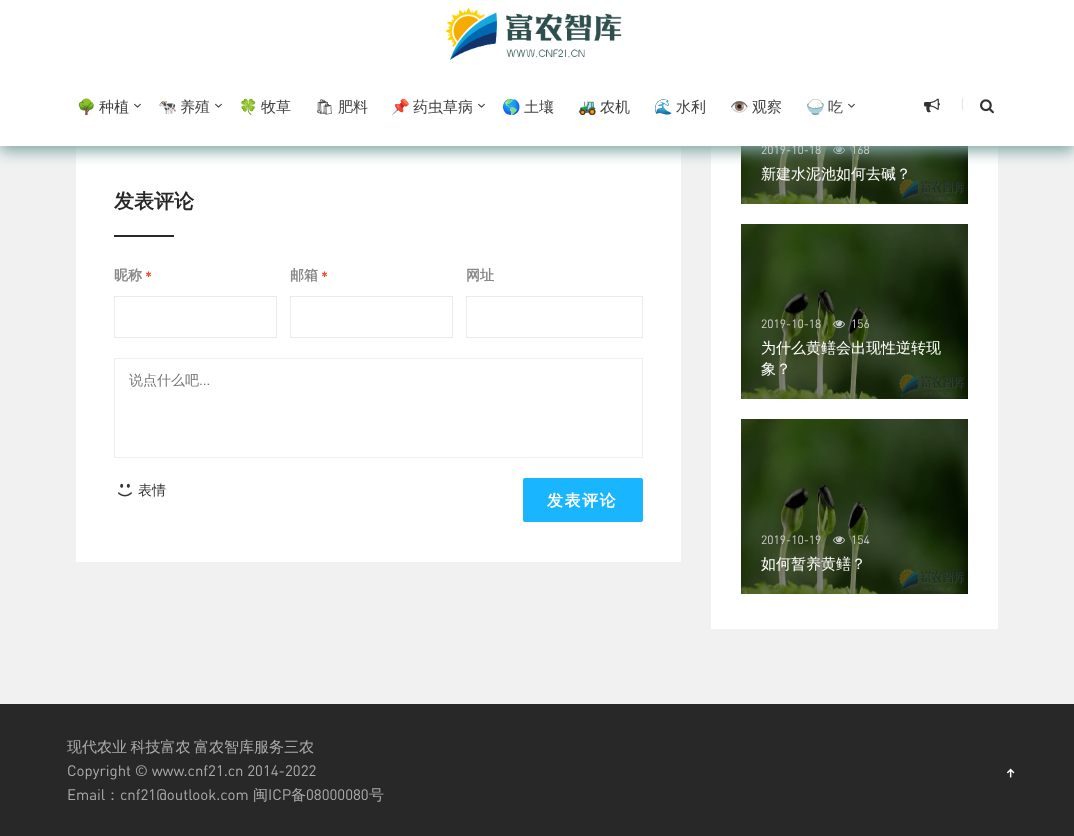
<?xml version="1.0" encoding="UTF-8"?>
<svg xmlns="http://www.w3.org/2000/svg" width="1074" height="836">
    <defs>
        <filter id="blur1" x="-50%" y="-200%" width="200%" height="500%"><feGaussianBlur stdDeviation="7.5"/></filter>
    </defs>
    <rect width="100%" height="100%" fill="#F1F1F1"/>
    <rect x="76" y="146" width="605" height="416" fill="#FFFFFF"/>
    <rect x="711" y="146" width="287" height="483" fill="#FFFFFF"/>
    <image x="741" y="146" width="227" height="58" href="img_07.png"/>
    <image x="833" y="146" width="12" height="9" href="img_06.png"/>
    <rect x="0" y="5" width="1074" height="146" fill="#80A5A1" filter="url(#blur1)"/>
    <text x="761" y="154" font-family="DIN" font-size="12" fill="#CCCCCC">2019-10-18</text>
    <text x="851" y="154" font-family="DIN" font-size="12" fill="#CCCCCC">168</text>
    <rect x="0" y="0" width="1074" height="146" fill="#FFFFFF"/>
    <image x="445" y="7" width="177" height="53" href="img_01.png"/>
    <text x="77" y="112" font-family="Noto Color Emoji" font-size="15" fill="#404040">🌳</text>
    <text x="99" y="112" font-family="WenQuanYi Zen Hei" font-size="15" font-weight="500" fill="#404040">种植</text>
    <image x="134" y="103" width="7" height="5" href="img_02.png"/>
    <text x="158" y="112" font-family="Noto Color Emoji" font-size="15" fill="#404040">🐄</text>
    <text x="180" y="112" font-family="WenQuanYi Zen Hei" font-size="15" font-weight="500" fill="#404040">养殖</text>
    <image x="215" y="103" width="7" height="5" href="img_02.png"/>
    <text x="239" y="112" font-family="Noto Color Emoji" font-size="15" fill="#404040">🍀</text>
    <text x="261" y="112" font-family="WenQuanYi Zen Hei" font-size="15" font-weight="500" fill="#404040">牧草</text>
    <text x="315" y="112" font-family="Noto Emoji" font-size="15" font-weight="500" fill="#404040">🛍</text>
    <text x="338" y="112" font-family="WenQuanYi Zen Hei" font-size="15" font-weight="500" fill="#404040">肥料</text>
    <text x="391" y="112" font-family="Noto Color Emoji" font-size="15" fill="#404040">📌</text>
    <text x="413" y="112" font-family="WenQuanYi Zen Hei" font-size="15" font-weight="500" fill="#404040">药虫草病</text>
    <image x="478" y="103" width="7" height="5" href="img_02.png"/>
    <text x="502" y="112" font-family="Noto Color Emoji" font-size="15" fill="#404040">🌎</text>
    <text x="524" y="112" font-family="WenQuanYi Zen Hei" font-size="15" font-weight="500" fill="#404040">土壤</text>
    <text x="578" y="112" font-family="Noto Color Emoji" font-size="15" fill="#404040">🚜</text>
    <text x="600" y="112" font-family="WenQuanYi Zen Hei" font-size="15" font-weight="500" fill="#404040">农机</text>
    <text x="654" y="112" font-family="Noto Color Emoji" font-size="15" fill="#404040">🌊</text>
    <text x="676" y="112" font-family="WenQuanYi Zen Hei" font-size="15" font-weight="500" fill="#404040">水利</text>
    <text x="730" y="112" font-family="Noto Color Emoji" font-size="15" fill="#404040">👁️</text>
    <text x="752" y="112" font-family="WenQuanYi Zen Hei" font-size="15" font-weight="500" fill="#404040">观察</text>
    <text x="806" y="112" font-family="Noto Color Emoji" font-size="15" fill="#404040">🍚</text>
    <text x="828" y="112" font-family="WenQuanYi Zen Hei" font-size="15" font-weight="500" fill="#404040">吃</text>
    <image x="848" y="103" width="7" height="5" href="img_02.png"/>
    <image x="924" y="98" width="16" height="15" href="img_03.png"/>
    <rect x="962" y="98" width="1" height="12" fill="#E5E5E5"/>
    <image x="980" y="99" width="14" height="15" href="img_04.png"/>
    <text x="114" y="208" font-family="WenQuanYi Zen Hei" font-size="20" font-weight="700" fill="#282828">发表评论</text>
    <rect x="114" y="235" width="60" height="2" fill="#282828"/>
    <text x="114" y="280" font-family="WenQuanYi Zen Hei" font-size="14" font-weight="700" fill="#888888">昵称</text>
    <text x="145" y="282" font-family="DIN" font-size="14" font-weight="700" fill="#FF4B33">*</text>
    <rect x="114.5" y="296.5" width="162" height="41" fill="none" stroke="#EAEAEA"/>
    <text x="290" y="280" font-family="WenQuanYi Zen Hei" font-size="14" font-weight="700" fill="#888888">邮箱</text>
    <text x="321" y="282" font-family="DIN" font-size="14" font-weight="700" fill="#FF4B33">*</text>
    <rect x="290.5" y="296.5" width="162" height="41" fill="none" stroke="#EAEAEA"/>
    <text x="466" y="280" font-family="WenQuanYi Zen Hei" font-size="14" font-weight="700" fill="#888888">网址</text>
    <rect x="466.5" y="296.5" width="176" height="41" fill="none" stroke="#EAEAEA"/>
    <rect x="114.5" y="358.5" width="528" height="99" fill="none" stroke="#EFEFEF"/>
    <text x="129" y="385" font-family="WenQuanYi Zen Hei" font-size="14" font-weight="500" fill="#757575">说点什么吧</text>
    <text x="199" y="385" font-family="DIN" font-size="14" fill="#757575">...</text>
    <image x="118" y="483" width="14" height="14" href="img_05.png"/>
    <text x="138" y="495" font-family="WenQuanYi Zen Hei" font-size="14" font-weight="500" fill="#333333">表情</text>
    <rect x="523" y="478" width="120" height="44" rx="2" fill="#19B5FE"/>
    <text x="547" y="506" font-family="WenQuanYi Zen Hei" font-size="16" font-weight="700" letter-spacing="1.5" fill="#FFFFFF">发表评论</text>
    <text x="761" y="179" font-family="WenQuanYi Zen Hei" font-size="15" font-weight="500" fill="#FFFFFF">新建水泥池如何去碱？</text>
    <image x="741" y="224" width="227" height="175" href="img_08.png"/>
    <text x="761" y="328" font-family="DIN" font-size="12" fill="#CCCCCC">2019-10-18</text>
    <image x="833" y="320" width="12" height="9" href="img_09.png"/>
    <text x="851" y="328" font-family="DIN" font-size="12" fill="#CCCCCC">156</text>
    <text font-family="WenQuanYi Zen Hei" font-size="15" font-weight="500" fill="#FFFFFF">
        <tspan x="761" y="353">为什么黄鳝会出现性逆转现</tspan>
        <tspan x="761" y="374">象？</tspan>
    </text>
    <image x="741" y="419" width="227" height="175" href="img_08.png"/>
    <text x="761" y="544" font-family="DIN" font-size="12" fill="#CCCCCC">2019-10-19</text>
    <image x="833" y="536" width="12" height="9" href="img_06.png"/>
    <text x="851" y="544" font-family="DIN" font-size="12" fill="#CCCCCC">154</text>
    <text x="761" y="569" font-family="WenQuanYi Zen Hei" font-size="15" font-weight="500" fill="#FFFFFF">如何暂养黄鳝？</text>
    <rect x="0" y="704" width="1074" height="132" fill="#282828"/>
    <text x="67" y="752" word-spacing="-1" font-family="WenQuanYi Zen Hei" font-size="15" font-weight="500" fill="#ABABAB">现代农业 科技富农 富农智库服务三农</text>
    <text font-family="DIN" font-size="15" fill="#ABABAB">
        <tspan x="67" y="776">Copyright © www.cnf21.cn 2014-2022</tspan>
        <tspan x="67" y="800">Email</tspan>
    </text>
    <text x="105" y="800" font-family="WenQuanYi Zen Hei" font-size="15" font-weight="500" fill="#ABABAB">：</text>
    <text x="120" y="800" font-family="DIN" font-size="15" fill="#ABABAB">cnf21@outlook.com</text>
    <text x="253" y="800" font-family="WenQuanYi Zen Hei" font-size="15" font-weight="500" fill="#ABABAB">闽</text>
    <text x="268" y="800" font-family="DIN" font-size="15" fill="#ABABAB">ICP</text>
    <text x="291" y="800" font-family="WenQuanYi Zen Hei" font-size="15" font-weight="500" fill="#ABABAB">备</text>
    <text x="306" y="800" font-family="DIN" font-size="15" fill="#ABABAB">08000080</text>
    <text x="369" y="800" font-family="WenQuanYi Zen Hei" font-size="15" font-weight="500" fill="#ABABAB">号</text>
    <image x="1007" y="768" width="8" height="10" href="img_10.png"/>
</svg>
